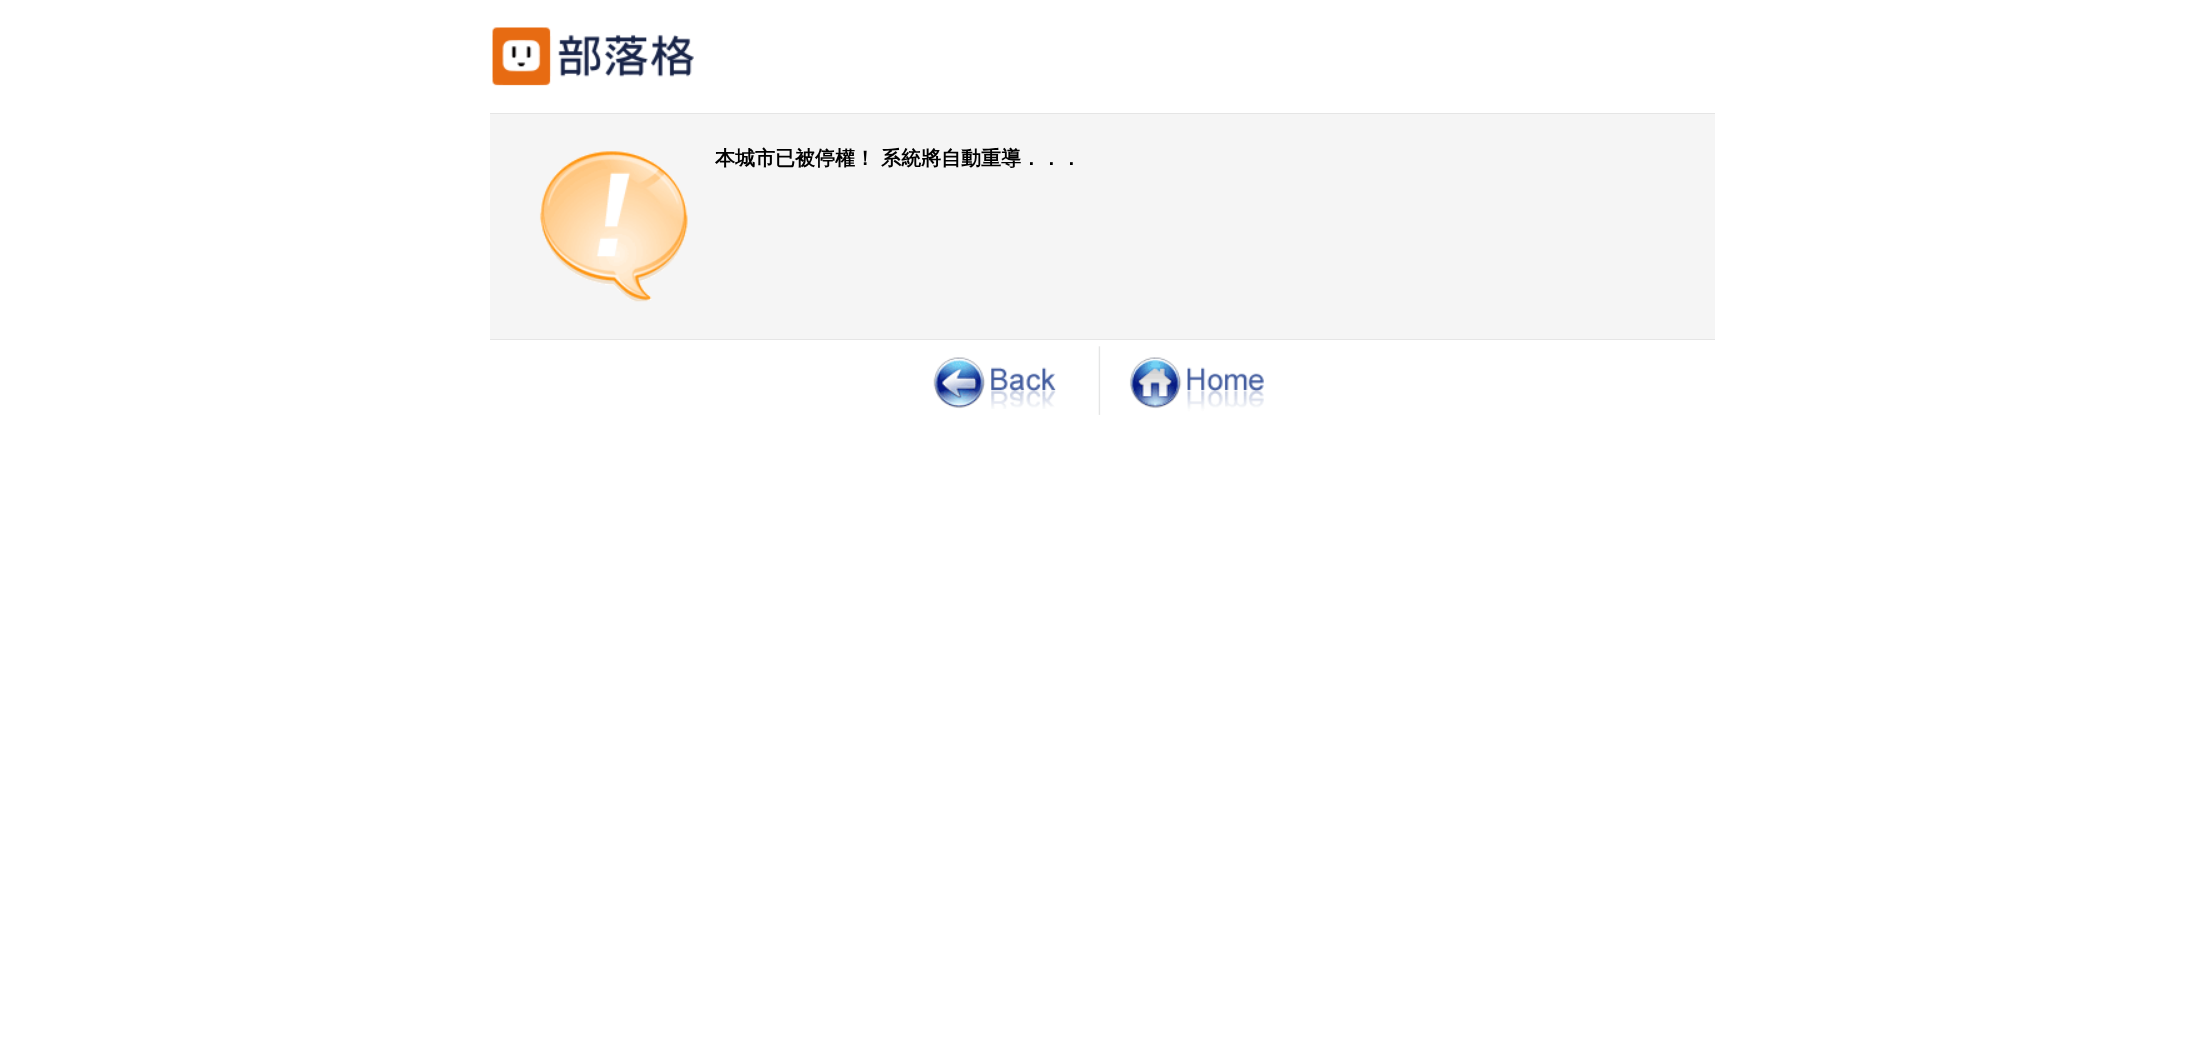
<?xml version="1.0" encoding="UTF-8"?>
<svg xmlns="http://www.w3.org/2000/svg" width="2204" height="1053">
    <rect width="100%" height="100%" fill="#FFFFFF"/>
    <image x="492" y="27" width="202" height="59" href="img_01.png"/>
    <rect x="490" y="114" width="1225" height="225" fill="#F5F5F5"/>
    <image x="539" y="151" width="149" height="151" href="img_02.png"/>
    <rect x="490" y="113" width="1225" height="1" fill="#E5E5E5"/>
    <rect x="490" y="339" width="1225" height="1" fill="#E5E5E5"/>
    <text x="715" y="165" font-family="WenQuanYi Zen Hei" font-size="20" font-weight="700" fill="#000000">本城市已被停權！ 系統將自動重導．．．</text>
    <image x="933" y="357" width="123" height="52" href="img_03.png"/>
    <image x="1098" y="346" width="166" height="69" href="img_04.png"/>
</svg>
